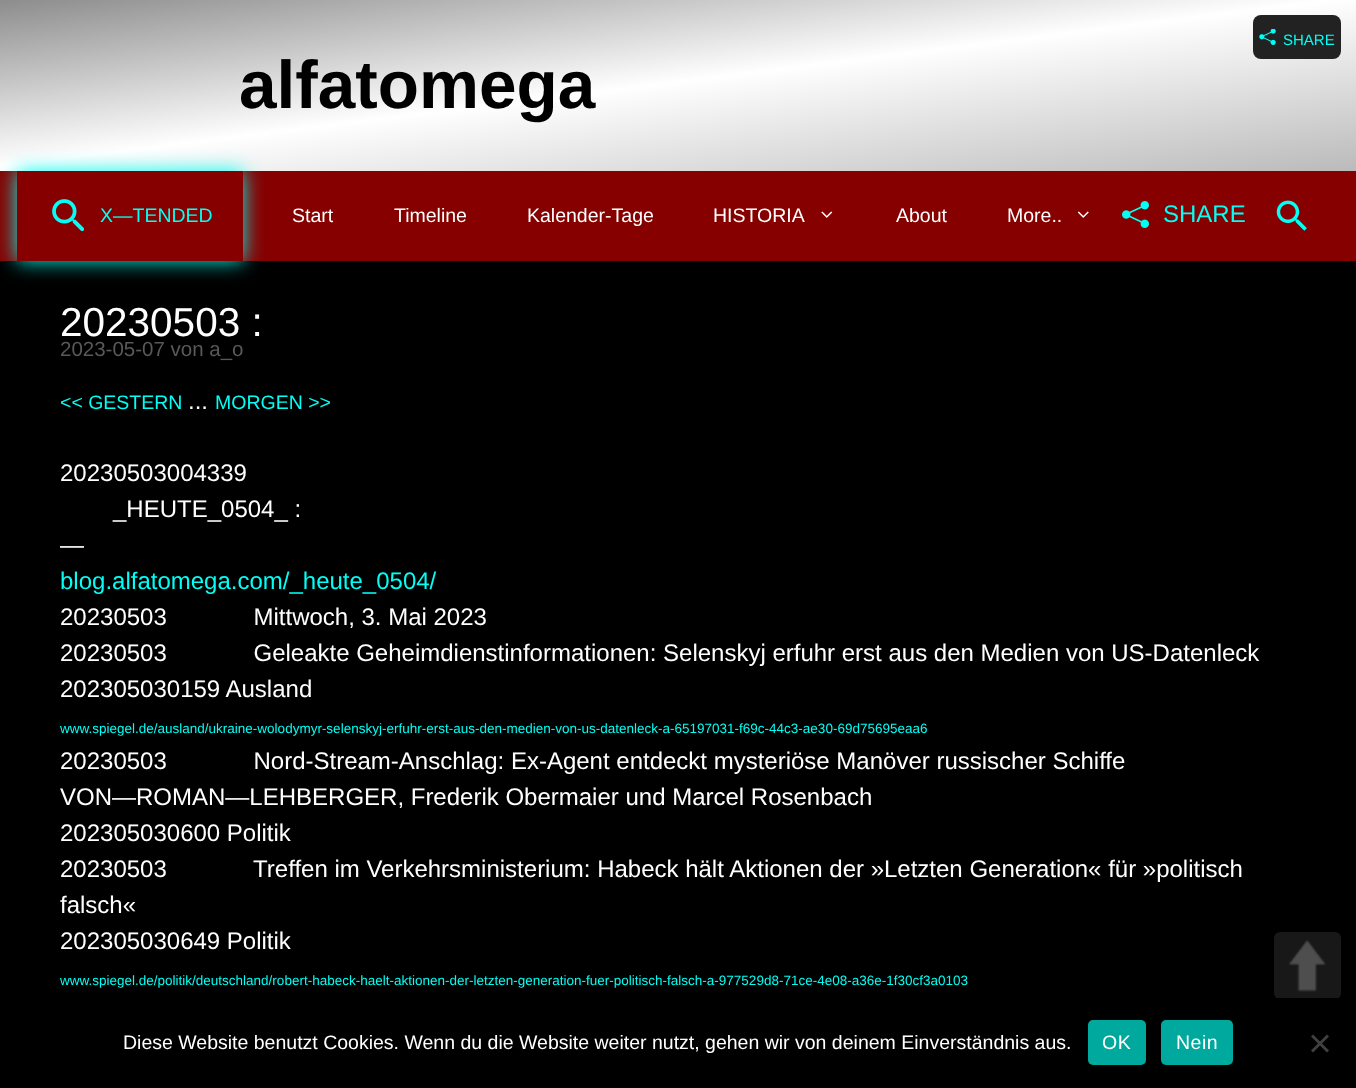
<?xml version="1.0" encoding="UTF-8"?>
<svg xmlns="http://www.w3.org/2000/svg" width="1356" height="1088">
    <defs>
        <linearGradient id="g1" gradientUnits="userSpaceOnUse" x1="699" y1="254" x2="657" y2="-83"><stop offset="0" stop-color="#BABABA"/><stop offset="0.5" stop-color="#FDFDFD"/><stop offset="0.51" stop-color="#FFFFFF"/><stop offset="1" stop-color="#8C8C8C"/></linearGradient>
        <clipPath id="clip1"><path d="M 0 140 H 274 V 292 H 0 Z M 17 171 H 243 V 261 H 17 Z" clip-rule="evenodd"/></clipPath>
        <filter id="blur1" x="-50%" y="-200%" width="200%" height="500%"><feGaussianBlur stdDeviation="10"/></filter>
    </defs>
    <rect width="100%" height="100%" fill="#860000"/>
    <rect x="0" y="0" width="1356" height="171" fill="url(#g1)"/>
    <rect x="1253" y="15" width="88" height="44" rx="8" fill="#222222"/>
    <image x="1259" y="29" width="17" height="16" href="img_01.png"/>
    <text x="1283" y="45" font-family="Liberation Sans" font-size="15" fill="#00FFF4">SHARE</text>
    <text x="239" y="108" font-family="Liberation Sans" font-size="67.5" font-weight="700" fill="#000000">alfatomega</text>
    <rect x="0" y="261" width="1356" height="737" fill="#000000"/>
    <g clip-path="url(#clip1)">
        <rect x="17" y="171" width="226" height="90" fill="#00FFF4" filter="url(#blur1)"/>
    </g>
    <image x="52" y="199" width="32" height="32" href="img_02.png"/>
    <text x="100" y="222" font-family="Liberation Sans" font-size="19.5" fill="#00FFF4">X—TENDED</text>
    <text x="292" y="222" font-family="Liberation Sans" font-size="19.5" fill="#FFFFFF">Start</text>
    <text x="394" y="222" font-family="Liberation Sans" font-size="19.5" fill="#FFFFFF">Timeline</text>
    <text x="527" y="222" font-family="Liberation Sans" font-size="19.5" fill="#FFFFFF">Kalender-Tage</text>
    <text x="713" y="222" font-family="Liberation Sans" font-size="19.5" fill="#FFFFFF">HISTORIA</text>
    <image x="821" y="211" width="12" height="7" href="img_03.png"/>
    <text x="896" y="222" font-family="Liberation Sans" font-size="19.5" fill="#FFFFFF">About</text>
    <text x="1007" y="222" font-family="Liberation Sans" font-size="19.5" fill="#FFFFFF">More..</text>
    <image x="1077" y="211" width="12" height="7" href="img_04.png"/>
    <image x="1122" y="201" width="27" height="27" href="img_05.png"/>
    <text x="1163" y="222" font-family="Liberation Sans" font-size="24" fill="#00FFF4">SHARE</text>
    <image x="1276" y="200" width="31" height="31" href="img_06.png"/>
    <text x="60" y="336" font-family="Liberation Sans" font-size="40.5" fill="#FFFFFF">20230503 :</text>
    <text x="60" y="356" font-family="Liberation Sans" font-size="20.5" fill="#595959">2023-05-07 von a_o</text>
    <text x="60" y="409" font-family="Liberation Sans" font-size="19.5" fill="#00FFF4">&lt;&lt; GESTERN</text>
    <text x="188" y="409" font-family="Liberation Sans" font-size="24" fill="#FFFFFF">...</text>
    <text x="215" y="409" font-family="Liberation Sans" font-size="19.5" fill="#00FFF4">MORGEN &gt;&gt;</text>
    <text x="60" y="481" font-family="Liberation Sans" font-size="24" fill="#FFFFFF">20230503004339</text>
    <text x="113" y="517" font-family="Liberation Sans" font-size="24" fill="#FFFFFF">_HEUTE_0504_ :</text>
    <text x="60" y="553" font-family="Liberation Sans" font-size="24" fill="#FFFFFF">—</text>
    <text x="60" y="589" font-family="Liberation Sans" font-size="24" fill="#00FFF4">blog.alfatomega.com/_heute_0504/</text>
    <text font-family="Liberation Sans" font-size="24" fill="#FFFFFF" xml:space="preserve"><tspan x="60" y="625">20230503             Mittwoch, 3. Mai 2023</tspan><tspan x="60" y="661">20230503             Geleakte Geheimdienstinformationen: Selenskyj erfuhr erst aus den Medien von US-Datenleck</tspan><tspan x="60" y="697">202305030159 Ausland</tspan></text>
    <text x="60" y="733" font-family="Liberation Sans" font-size="13.5" fill="#00FFF4">www.spiegel.de/ausland/ukraine-wolodymyr-selenskyj-erfuhr-erst-aus-den-medien-von-us-datenleck-a-65197031-f69c-44c3-ae30-69d75695eaa6</text>
    <text font-family="Liberation Sans" font-size="24" fill="#FFFFFF" xml:space="preserve"><tspan x="60" y="769">20230503             Nord-Stream-Anschlag: Ex-Agent entdeckt mysteriöse Manöver russischer Schiffe</tspan><tspan x="60" y="805">VON—ROMAN—LEHBERGER, Frederik Obermaier und Marcel Rosenbach</tspan><tspan x="60" y="841">202305030600 Politik</tspan><tspan x="60" y="877">20230503             Treffen im Verkehrsministerium: Habeck hält Aktionen der »Letzten Generation« für »politisch</tspan><tspan x="60" y="913">falsch«</tspan><tspan x="60" y="949">202305030649 Politik</tspan></text>
    <text x="60" y="985" font-family="Liberation Sans" font-size="13.5" fill="#00FFF4">www.spiegel.de/politik/deutschland/robert-habeck-haelt-aktionen-der-letzten-generation-fuer-politisch-falsch-a-977529d8-71ce-4e08-a36e-1f30cf3a0103</text>
    <rect x="1274" y="932" width="67" height="67" rx="6" fill="#1F1F1F"/>
    <image x="1274" y="932" width="67" height="66" href="img_07.png"/>
    <rect x="0" y="998" width="1356" height="90" fill="#000000"/>
    <text x="123" y="1049" font-family="Liberation Sans" font-size="19.5" fill="#FFFFFF">Diese Website benutzt Cookies. Wenn du die Website weiter nutzt, gehen wir von deinem Einverständnis aus.</text>
    <rect x="1088" y="1020" width="58" height="45" rx="5" fill="#00A99D"/>
    <text x="1102" y="1049" font-family="Liberation Sans" font-size="19.5" letter-spacing="0.5" fill="#FFFFFF">OK</text>
    <rect x="1161" y="1020" width="72" height="45" rx="5" fill="#00A99D"/>
    <text x="1176" y="1049" font-family="Liberation Sans" font-size="19.5" letter-spacing="0.5" fill="#FFFFFF">Nein</text>
    <path d="M 1327 1034.5 L 1329 1036.5 L 1313 1052.5 L 1311 1050.5 Z" fill="#404040"/>
    <path d="M 1311 1036.5 L 1313 1034.5 L 1329 1050.5 L 1327 1052.5 Z" fill="#404040"/>
</svg>
